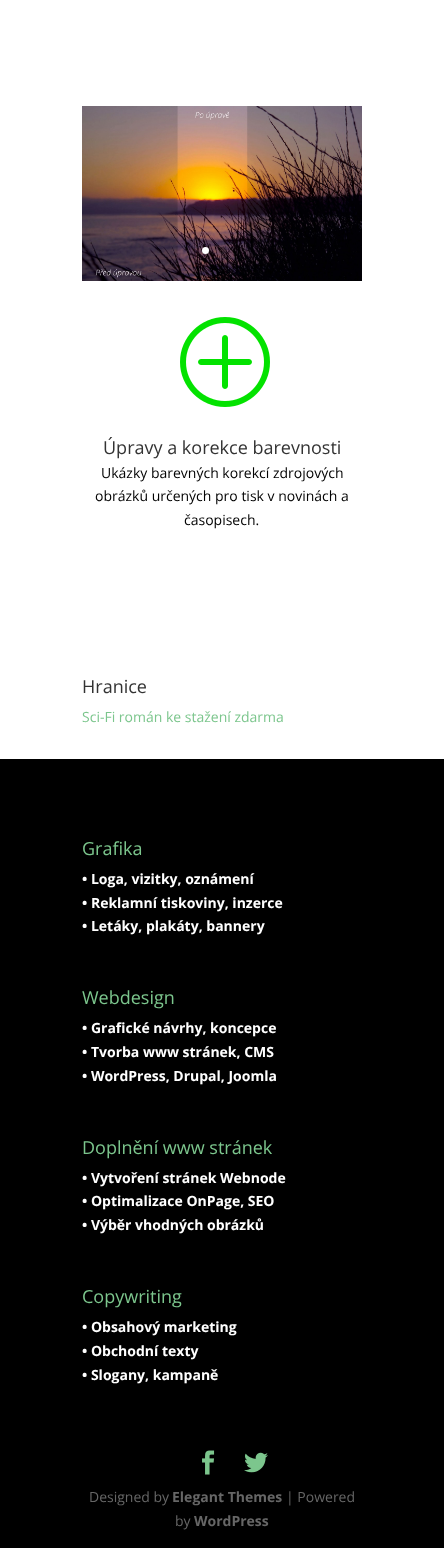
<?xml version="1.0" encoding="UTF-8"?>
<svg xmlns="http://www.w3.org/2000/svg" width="444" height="1548">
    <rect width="100%" height="100%" fill="#FFFFFF"/>
    <image x="82" y="106" width="280" height="175" href="img_01.png"/>
    <circle cx="205.5" cy="250.5" r="3.5" fill="#FFFFFF"/>
    <circle cx="222.5" cy="250.5" r="3.5" fill="#000000" fill-opacity="0.3"/>
    <circle cx="239.5" cy="250.5" r="3.5" fill="#000000" fill-opacity="0.3"/>
    <image x="180" y="317" width="90" height="90" href="img_02.png"/>
    <text x="103" y="454" font-family="Open Sans" font-size="18" fill="#333333">Úpravy a korekce barevnosti</text>
    <text x="101" y="478" font-family="Open Sans" font-size="14" fill="#020202">Ukázky barevných korekcí zdrojových</text>
    <text x="95" y="501" font-family="Open Sans" font-size="14" fill="#020202">obrázků určených pro tisk v novinách a</text>
    <text x="184" y="525" font-family="Open Sans" font-size="14" fill="#020202">časopisech.</text>
    <text x="82" y="693" font-family="Open Sans" font-size="18" fill="#333333">Hranice</text>
    <text x="82" y="722" font-family="Open Sans" font-size="14" fill="#7CC68D">Sci-Fi román ke stažení zdarma</text>
    <rect x="0" y="759" width="444" height="789" fill="#000000"/>
    <text x="82" y="855" font-family="Open Sans" font-size="18" fill="#7CC68D">Grafika</text>
    <text font-family="Open Sans" font-size="14" font-weight="700" fill="#FFFFFF">
        <tspan x="82" y="884">• Loga, vizitky, oznámení</tspan>
        <tspan x="82" y="908">• Reklamní tiskoviny, inzerce</tspan>
        <tspan x="82" y="931">• Letáky, plakáty, bannery</tspan>
    </text>
    <text x="82" y="1004" font-family="Open Sans" font-size="18" fill="#7CC68D">Webdesign</text>
    <text font-family="Open Sans" font-size="14" font-weight="700" fill="#FFFFFF">
        <tspan x="82" y="1033">• Grafické návrhy, koncepce</tspan>
        <tspan x="82" y="1057">• Tvorba www stránek, CMS</tspan>
        <tspan x="82" y="1081">• WordPress, Drupal, Joomla</tspan>
    </text>
    <text x="82" y="1154" font-family="Open Sans" font-size="18" fill="#7CC68D">Doplnění www stránek</text>
    <text font-family="Open Sans" font-size="14" font-weight="700" fill="#FFFFFF">
        <tspan x="82" y="1183">• Vytvoření stránek Webnode</tspan>
        <tspan x="82" y="1206">• Optimalizace OnPage, SEO</tspan>
        <tspan x="82" y="1230">• Výběr vhodných obrázků</tspan>
    </text>
    <text x="82" y="1303" font-family="Open Sans" font-size="18" fill="#7CC68D">Copywriting</text>
    <text font-family="Open Sans" font-size="14" font-weight="700" fill="#FFFFFF">
        <tspan x="82" y="1332">• Obsahový marketing</tspan>
        <tspan x="82" y="1356">• Obchodní texty</tspan>
        <tspan x="82" y="1380">• Slogany, kampaně</tspan>
    </text>
    <image x="202" y="1450" width="13" height="25" href="img_03.png"/>
    <image x="244" y="1452" width="24" height="21" href="img_04.png"/>
    <text x="89" y="1502" font-family="Open Sans" font-size="14" fill="#666666">Designed by</text>
    <text x="172" y="1502" font-family="Open Sans" font-size="14" font-weight="700" fill="#666666">Elegant Themes</text>
    <text x="286" y="1502" font-family="Open Sans" font-size="14" fill="#666666">| Powered</text>
    <text x="175" y="1526" font-family="Open Sans" font-size="14" fill="#666666">by</text>
    <text x="194" y="1526" font-family="Open Sans" font-size="14" font-weight="700" fill="#666666">WordPress</text>
</svg>
